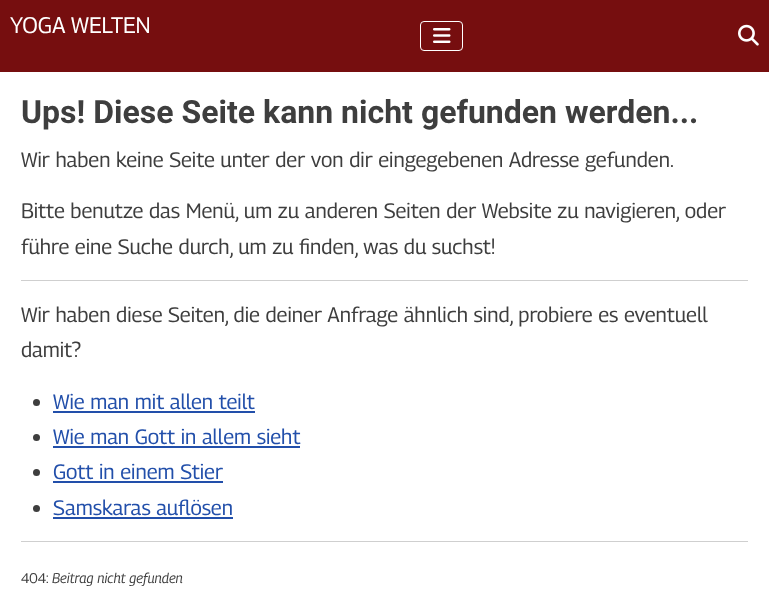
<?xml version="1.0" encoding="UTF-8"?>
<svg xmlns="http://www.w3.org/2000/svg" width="769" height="597">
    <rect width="100%" height="100%" fill="#FFFFFF"/>
    <rect x="0" y="0" width="769" height="72" fill="#760E0F"/>
    <text x="10" y="33" font-family="Georama" font-size="22.5" fill="#FFFFFF">YOGA WELTEN</text>
    <rect x="420.5" y="21.5" width="42" height="29" rx="3.5" fill="none" stroke="#FFFFFF"/>
    <image x="433" y="28" width="18" height="15" href="img_01.png"/>
    <image x="738" y="24" width="21" height="22" href="img_02.png"/>
    <text x="21" y="123" font-family="Roboto" font-size="32" font-weight="700" fill="#3E3E3E">Ups! Diese Seite kann nicht gefunden werden...</text>
    <text x="21" y="167" font-family="Georama" font-size="20.8" fill="#3E3E3E">Wir haben keine Seite unter der von dir eingegebenen Adresse gefunden.</text>
    <text font-family="Georama" font-size="20.8" fill="#3E3E3E">
        <tspan x="21" y="218">Bitte benutze das Menü, um zu anderen Seiten der Website zu navigieren, oder</tspan>
        <tspan x="21" y="254">führe eine Suche durch, um zu finden, was du suchst!</tspan>
    </text>
    <rect x="21" y="280" width="727" height="1" fill="#CFCFCF"/>
    <text font-family="Georama" font-size="20.8" fill="#3E3E3E">
        <tspan x="21" y="322">Wir haben diese Seiten, die deiner Anfrage ähnlich sind, probiere es eventuell</tspan>
        <tspan x="21" y="357">damit?</tspan>
    </text>
    <circle cx="36.5" cy="402.5" r="3.5" fill="#3E3E3E"/>
    <text x="53" y="409" font-family="Georama" font-size="20.8" fill="#224FAA">Wie man mit allen teilt</text>
    <rect x="53" y="411" width="202" height="2" fill="#224FAA"/>
    <circle cx="36.5" cy="437.5" r="3.5" fill="#3E3E3E"/>
    <text x="53" y="444" font-family="Georama" font-size="20.8" fill="#224FAA">Wie man Gott in allem sieht</text>
    <rect x="53" y="446" width="247" height="2" fill="#224FAA"/>
    <circle cx="36.5" cy="472.5" r="3.5" fill="#3E3E3E"/>
    <text x="53" y="479" font-family="Georama" font-size="20.8" fill="#224FAA">Gott in einem Stier</text>
    <rect x="53" y="481" width="170" height="2" fill="#224FAA"/>
    <circle cx="36.5" cy="508.5" r="3.5" fill="#3E3E3E"/>
    <text x="53" y="515" font-family="Georama" font-size="20.8" fill="#224FAA">Samskaras auflösen</text>
    <rect x="53" y="517" width="180" height="2" fill="#224FAA"/>
    <rect x="21" y="541" width="727" height="1" fill="#CFCFCF"/>
    <text x="21" y="583" font-family="Georama" font-size="14" fill="#3E3E3E">404:</text>
    <text x="52" y="583" font-family="Georama" font-size="14" font-style="italic" fill="#3E3E3E">Beitrag nicht gefunden</text>
</svg>
